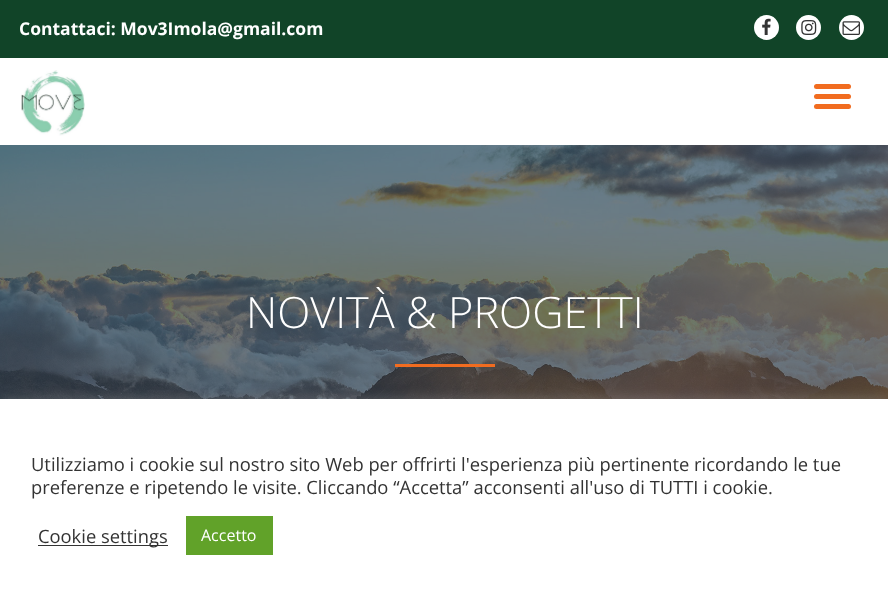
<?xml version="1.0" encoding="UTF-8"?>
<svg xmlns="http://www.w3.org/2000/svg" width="888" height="592">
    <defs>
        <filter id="blur1" x="-50%" y="-200%" width="200%" height="500%"><feGaussianBlur stdDeviation="6"/></filter>
    </defs>
    <rect width="100%" height="100%" fill="#FFFFFF"/>
    <rect x="0" y="0" width="888" height="58" fill="#114428"/>
    <text x="19" y="35" font-family="Open Sans" font-size="17.5" font-weight="700" fill="#FFFFFF">Contattaci: Mov3Imola@gmail.com</text>
    <circle cx="766.5" cy="27.5" r="12.5" fill="#FFFFFF"/>
    <image x="762" y="18" width="9" height="17" href="img_01.png"/>
    <circle cx="808.5" cy="27.5" r="12.5" fill="#FFFFFF"/>
    <image x="801" y="20" width="16" height="15" href="img_02.png"/>
    <circle cx="851.5" cy="27.5" r="12.5" fill="#FFFFFF"/>
    <image x="842" y="21" width="18" height="14" href="img_03.png"/>
    <image x="21" y="70" width="64" height="66" href="img_04.png"/>
    <rect x="814" y="84" width="37" height="5" rx="2.5" fill="#F16C20"/>
    <rect x="814" y="94" width="37" height="5" rx="2.5" fill="#F16C20"/>
    <rect x="814" y="104" width="37" height="5" rx="2.5" fill="#F16C20"/>
    <image x="0" y="145" width="888" height="254" href="img_05.png"/>
    <text x="246" y="328" font-family="Open Sans" font-size="43.25" font-weight="300" fill="#FFFFFF">NOVITÀ &amp; PROGETTI</text>
    <rect x="395" y="364" width="100" height="3" fill="#F16C20"/>
    <rect x="0" y="398" width="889" height="193" fill="#ACABAB" fill-opacity="0.3" filter="url(#blur1)"/>
    <rect x="0" y="399" width="888" height="193" fill="#FFFFFF"/>
    <text font-family="Open Sans" font-size="18.35" fill="#333333">
        <tspan x="31" y="471">Utilizziamo i cookie sul nostro sito Web per offrirti l'esperienza più pertinente ricordando le tue</tspan>
        <tspan x="31" y="494">preferenze e ripetendo le visite. Cliccando “Accetta” acconsenti all'uso di TUTTI i cookie.</tspan>
    </text>
    <rect x="38" y="545" width="130" height="1" fill="#333333"/>
    <text x="38" y="543" font-family="Open Sans" font-size="18.35" fill="#333333">Cookie settings</text>
    <rect x="186" y="516" width="87" height="39" fill="#61A229"/>
    <text x="201" y="541" font-family="Open Sans" font-size="16" fill="#FFFFFF">Accetto</text>
</svg>
